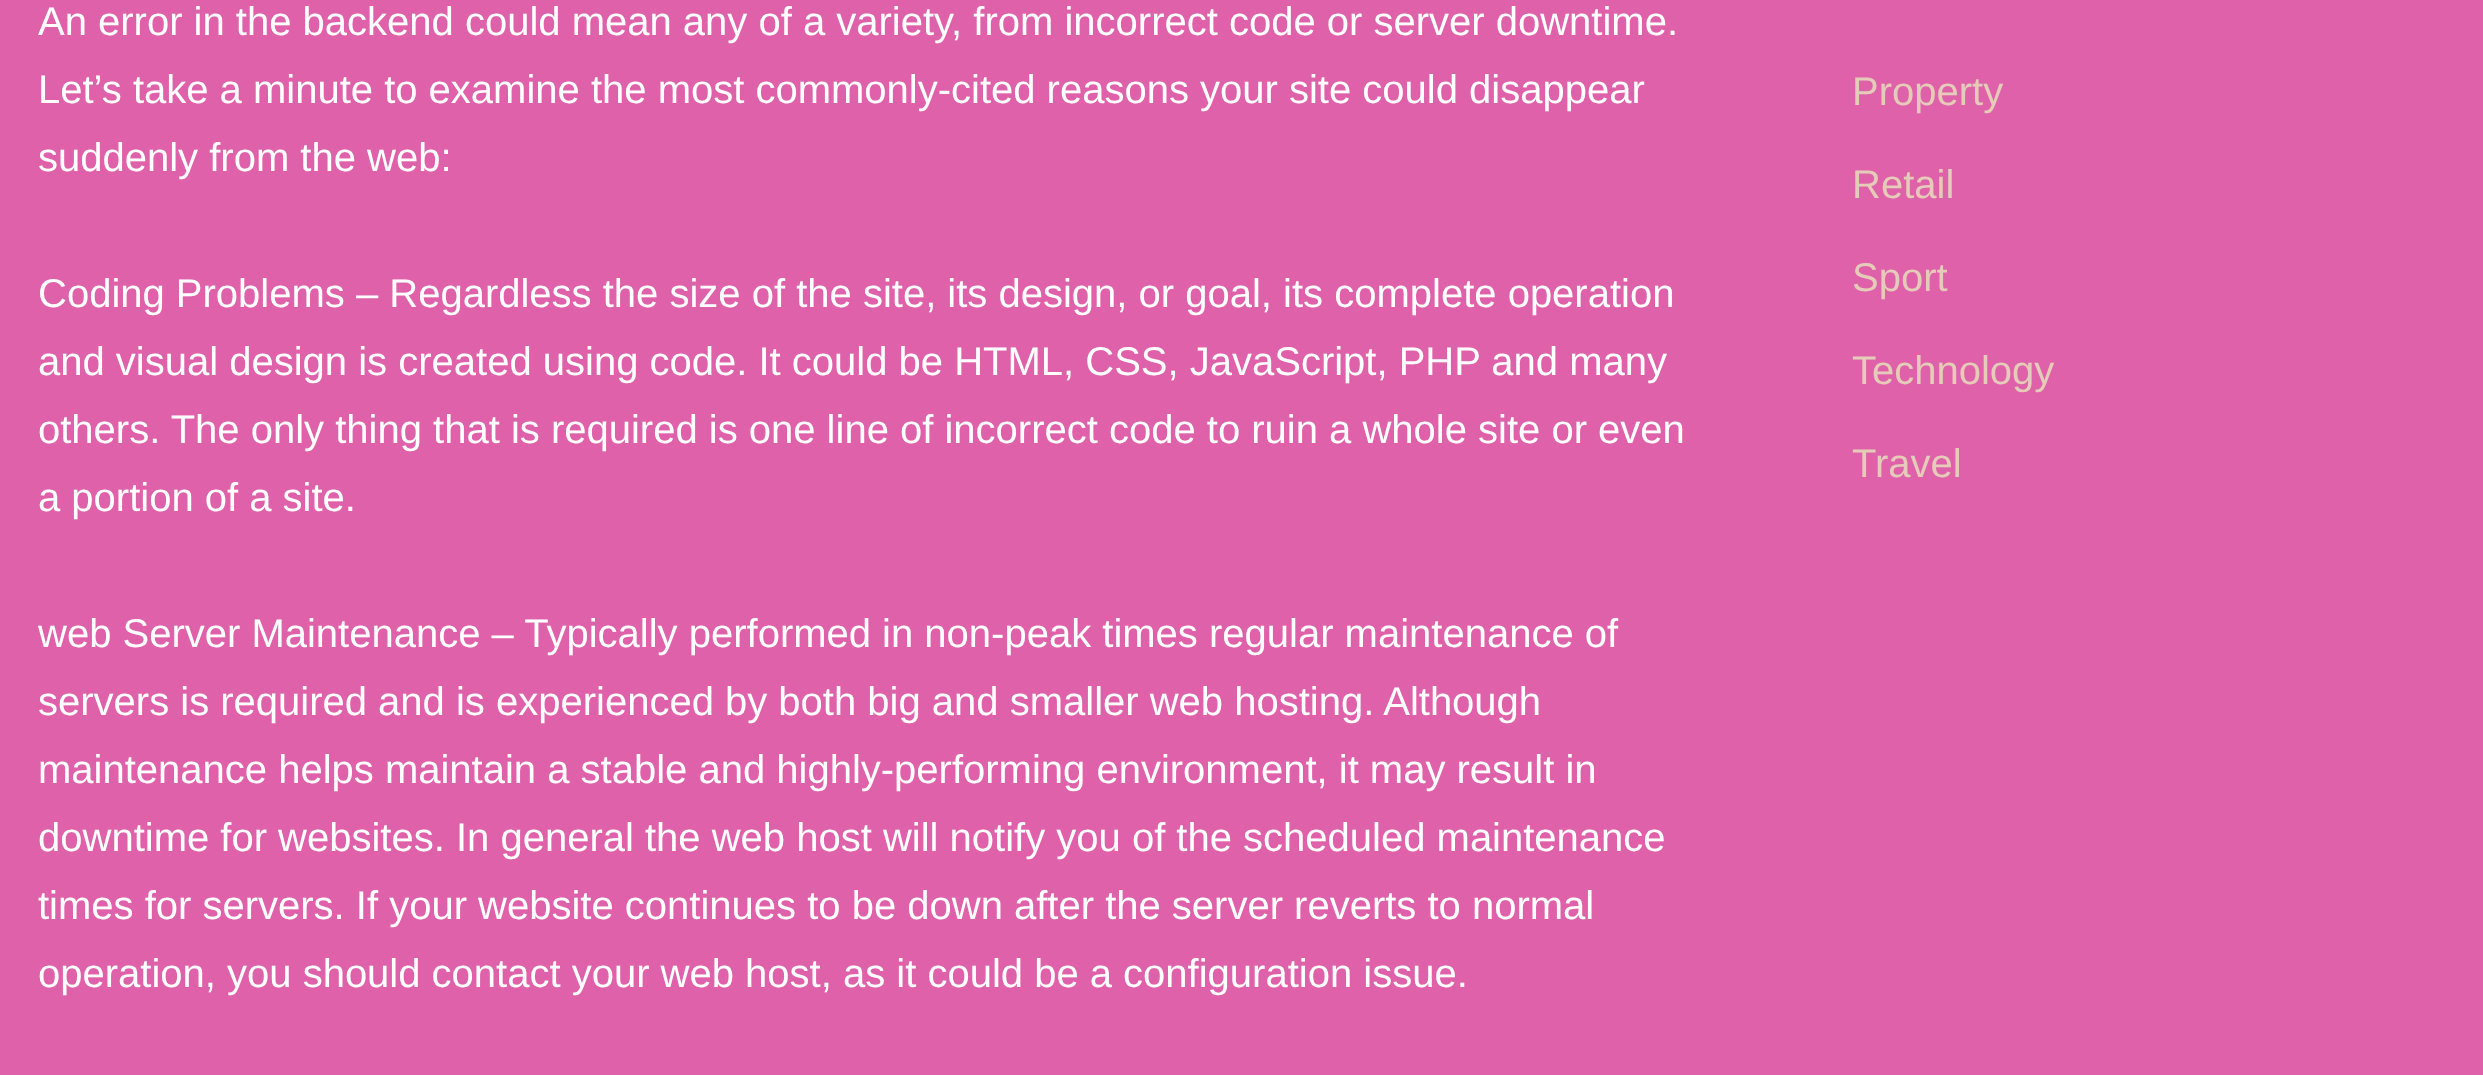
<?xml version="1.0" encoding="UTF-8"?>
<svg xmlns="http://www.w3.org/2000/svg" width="2483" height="1075">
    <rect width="100%" height="100%" fill="#DF61AA"/>
    <text font-family="Liberation Sans" font-size="40" fill="#FFFFFF">
        <tspan x="38" y="35">An error in the backend could mean any of a variety, from incorrect code or server downtime.</tspan>
        <tspan x="38" y="103">Let’s take a minute to examine the most commonly-cited reasons your site could disappear</tspan>
        <tspan x="38" y="171">suddenly from the web:</tspan>
    </text>
    <text font-family="Liberation Sans" font-size="40" fill="#FFFFFF">
        <tspan x="38" y="307">Coding Problems – Regardless the size of the site, its design, or goal, its complete operation</tspan>
        <tspan x="38" y="375">and visual design is created using code. It could be HTML, CSS, JavaScript, PHP and many</tspan>
        <tspan x="38" y="443">others. The only thing that is required is one line of incorrect code to ruin a whole site or even</tspan>
        <tspan x="38" y="511">a portion of a site.</tspan>
    </text>
    <text font-family="Liberation Sans" font-size="40" fill="#FFFFFF">
        <tspan x="38" y="647">web Server Maintenance – Typically performed in non-peak times regular maintenance of</tspan>
        <tspan x="38" y="715">servers is required and is experienced by both big and smaller web hosting. Although</tspan>
        <tspan x="38" y="783">maintenance helps maintain a stable and highly-performing environment, it may result in</tspan>
        <tspan x="38" y="851">downtime for websites. In general the web host will notify you of the scheduled maintenance</tspan>
        <tspan x="38" y="919">times for servers. If your website continues to be down after the server reverts to normal</tspan>
        <tspan x="38" y="987">operation, you should contact your web host, as it could be a configuration issue.</tspan>
    </text>
    <text x="1852" y="105" font-family="Liberation Sans" font-size="40" fill="#E5CCB9">Property</text>
    <text x="1852" y="198" font-family="Liberation Sans" font-size="40" fill="#E5CCB9">Retail</text>
    <text x="1852" y="291" font-family="Liberation Sans" font-size="40" fill="#E5CCB9">Sport</text>
    <text x="1852" y="384" font-family="Liberation Sans" font-size="40" fill="#E5CCB9">Technology</text>
    <text x="1852" y="477" font-family="Liberation Sans" font-size="40" fill="#E5CCB9">Travel</text>
</svg>
